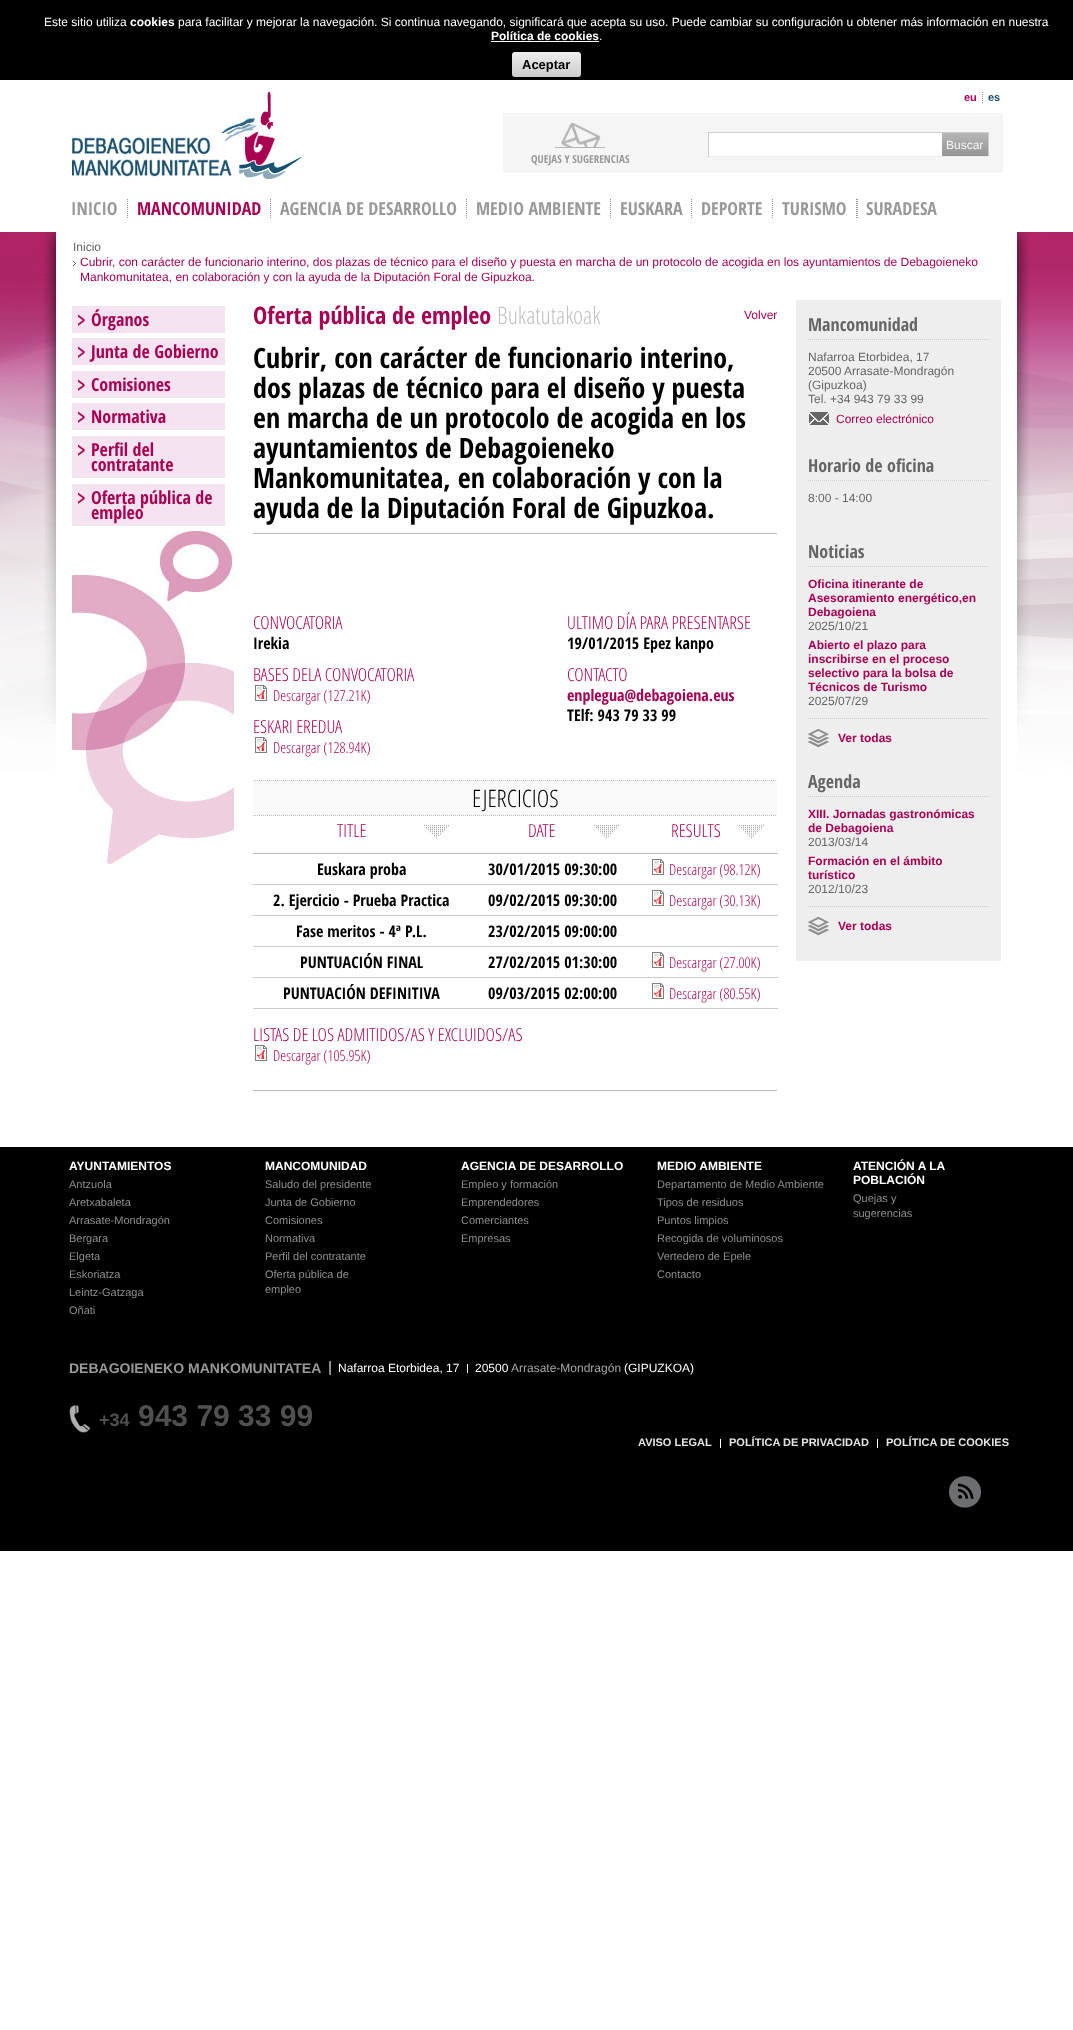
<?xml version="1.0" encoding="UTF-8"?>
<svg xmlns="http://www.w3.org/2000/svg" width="1073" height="2030">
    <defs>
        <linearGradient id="g1" gradientUnits="userSpaceOnUse" x1="547" y1="52" x2="547" y2="77"><stop offset="0" stop-color="#EEEEEE"/><stop offset="1" stop-color="#CCCCCC"/></linearGradient>
        <linearGradient id="g2" gradientUnits="userSpaceOnUse" x1="965" y1="133" x2="965" y2="156"><stop offset="0" stop-color="#B7B7B7"/><stop offset="1" stop-color="#949494"/></linearGradient>
    </defs>
    <rect width="100%" height="100%" fill="#FFFFFF"/>
    <rect x="0" y="0" width="1073" height="80" fill="#000000"/>
    <text x="44" y="26" font-family="Liberation Sans" font-size="12" fill="#FFFFFF">Este sitio utiliza</text>
    <text x="130" y="26" font-family="Liberation Sans" font-size="12" font-weight="700" fill="#FFFFFF">cookies</text>
    <text x="178" y="26" font-family="Liberation Sans" font-size="12" fill="#FFFFFF">para facilitar y mejorar la navegación. Si continua navegando, significará que acepta su uso. Puede cambiar su configuración u obtener más información en nuestra</text>
    <text x="491" y="40" font-family="Liberation Sans" font-size="12" font-weight="700" fill="#FFFFFF">Política de cookies</text>
    <rect x="491" y="41" width="108" height="1" fill="#FFFFFF"/>
    <text x="599" y="40" font-family="Liberation Sans" font-size="12" fill="#FFFFFF">.</text>
    <rect x="512" y="52" width="69" height="25" rx="3" fill="url(#g1)"/>
    <text x="522" y="69" font-family="Liberation Sans" font-size="13" font-weight="700" fill="#000000">Aceptar</text>
    <image x="72" y="91" width="230" height="89" href="img_01.png"/>
    <text x="964" y="101" font-family="Liberation Sans" font-size="11" font-weight="700" fill="#AA0052">eu</text>
    <image x="982" y="92" width="1" height="11" href="img_02.png"/>
    <text x="988" y="101" font-family="Liberation Sans" font-size="11" font-weight="700" fill="#1B516E">es</text>
    <rect x="503" y="113" width="500" height="60" fill="#F5F5F5"/>
    <rect x="709" y="133" width="233" height="23" fill="#FFFFFF"/>
    <rect x="708" y="132" width="281" height="1" fill="#CCCCCC"/>
    <rect x="988" y="132" width="1" height="25" fill="#CCCCCC"/>
    <rect x="708" y="156" width="281" height="1" fill="#EDEAEA"/>
    <rect x="708" y="132" width="1" height="25" fill="#CCCCCC"/>
    <rect x="942" y="133" width="46" height="23" fill="url(#g2)"/>
    <text x="946" y="149" font-family="Liberation Sans" font-size="12" fill="#F6F6F6">Buscar</text>
    <image x="555" y="123" width="50" height="25" href="img_03.png"/>
    <text x="531" y="163" font-family="Open Sans Condensed" font-size="11" font-weight="700" fill="#999999">QUEJAS Y SUGERENCIAS</text>
    <text x="71" y="215" font-family="Open Sans Condensed" font-size="18" font-weight="700" fill="#999999">INICIO</text>
    <image x="127" y="199" width="1" height="19" href="img_04.png"/>
    <text x="137" y="215" font-family="Open Sans Condensed" font-size="18" font-weight="700" fill="#AA0052">MANCOMUNIDAD</text>
    <image x="270" y="199" width="1" height="19" href="img_04.png"/>
    <text x="280" y="215" font-family="Open Sans Condensed" font-size="18" font-weight="700" fill="#999999">AGENCIA DE DESARROLLO</text>
    <image x="466" y="199" width="1" height="19" href="img_04.png"/>
    <text x="476" y="215" font-family="Open Sans Condensed" font-size="18" font-weight="700" fill="#999999">MEDIO AMBIENTE</text>
    <image x="610" y="199" width="1" height="19" href="img_04.png"/>
    <text x="620" y="215" font-family="Open Sans Condensed" font-size="18" font-weight="700" fill="#999999">EUSKARA</text>
    <image x="691" y="199" width="1" height="19" href="img_04.png"/>
    <text x="701" y="215" font-family="Open Sans Condensed" font-size="18" font-weight="700" fill="#999999">DEPORTE</text>
    <image x="772" y="199" width="1" height="19" href="img_04.png"/>
    <text x="782" y="215" font-family="Open Sans Condensed" font-size="18" font-weight="700" fill="#999999">TURISMO</text>
    <image x="856" y="199" width="2" height="19" href="img_05.png"/>
    <text x="866" y="215" font-family="Open Sans Condensed" font-size="18" font-weight="700" fill="#999999">SURADESA</text>
    <image x="0" y="232" width="1073" height="538" href="img_06.png"/>
    <rect x="56" y="232" width="961" height="538" fill="#FFFFFF"/>
    <image x="44" y="232" width="12" height="492" href="img_07.png"/>
    <text x="73" y="251" font-family="Liberation Sans" font-size="12" fill="#666666">Inicio</text>
    <image x="73" y="261" width="3" height="5" href="img_08.png"/>
    <text font-family="Liberation Sans" font-size="12" fill="#AA0052">
        <tspan x="80" y="266">Cubrir, con carácter de funcionario interino, dos plazas de técnico para el diseño y puesta en marcha de un protocolo de acogida en los ayuntamientos de Debagoieneko</tspan>
        <tspan x="80" y="281">Mankomunitatea, en colaboración y con la ayuda de la Diputación Foral de Gipuzkoa.</tspan>
    </text>
    <image x="1017" y="232" width="12" height="492" href="img_09.png"/>
    <image x="72" y="531" width="162" height="333" href="img_10.png"/>
    <rect x="72" y="306" width="153" height="27" fill="#F5E3F1"/>
    <image x="78" y="314" width="7" height="12" href="img_11.png"/>
    <text x="91" y="326" font-family="Open Sans Condensed" font-size="18" font-weight="700" fill="#AA0052">Órganos</text>
    <rect x="72" y="338" width="153" height="27" fill="#F5E3F1"/>
    <image x="78" y="346" width="7" height="12" href="img_11.png"/>
    <text x="91" y="358" font-family="Open Sans Condensed" font-size="18" font-weight="700" fill="#AA0052">Junta de Gobierno</text>
    <rect x="72" y="371" width="153" height="27" fill="#F5E3F1"/>
    <image x="78" y="379" width="7" height="12" href="img_11.png"/>
    <text x="91" y="391" font-family="Open Sans Condensed" font-size="18" font-weight="700" fill="#AA0052">Comisiones</text>
    <rect x="72" y="403" width="153" height="27" fill="#F5E3F1"/>
    <image x="78" y="411" width="7" height="12" href="img_11.png"/>
    <text x="91" y="423" font-family="Open Sans Condensed" font-size="18" font-weight="700" fill="#AA0052">Normativa</text>
    <rect x="72" y="436" width="153" height="42" fill="#F5E3F1"/>
    <image x="78" y="444" width="7" height="12" href="img_11.png"/>
    <text font-family="Open Sans Condensed" font-size="18" font-weight="700" fill="#AA0052">
        <tspan x="91" y="456">Perfil del</tspan>
        <tspan x="91" y="471">contratante</tspan>
    </text>
    <rect x="72" y="484" width="153" height="42" fill="#F5E3F1"/>
    <image x="78" y="492" width="7" height="12" href="img_11.png"/>
    <text font-family="Open Sans Condensed" font-size="18" font-weight="700" fill="#AA0052">
        <tspan x="91" y="504">Oferta pública de</tspan>
        <tspan x="91" y="519">empleo</tspan>
    </text>
    <text x="253" y="324" font-family="Open Sans Condensed" font-size="24" font-weight="700" fill="#AA0052">Oferta pública de empleo</text>
    <text x="497" y="324" font-family="Open Sans" font-size="24" font-weight="300" fill="#C3C0C0">Bukatutakoak</text>
    <text x="744" y="319" font-family="Liberation Sans" font-size="12" fill="#AA0052">Volver</text>
    <rect x="253" y="533" width="524" height="1" fill="#C3C0C0"/>
    <text font-family="Open Sans Condensed" font-size="28" font-weight="700" fill="#000000">
        <tspan x="253" y="368">Cubrir, con carácter de funcionario interino,</tspan>
        <tspan x="253" y="398">dos plazas de técnico para el diseño y puesta</tspan>
        <tspan x="253" y="428">en marcha de un protocolo de acogida en los</tspan>
        <tspan x="253" y="458">ayuntamientos de Debagoieneko</tspan>
        <tspan x="253" y="488">Mankomunitatea, en colaboración y con la</tspan>
        <tspan x="253" y="518">ayuda de la Diputación Foral de Gipuzkoa.</tspan>
    </text>
    <rect x="253" y="1090" width="524" height="1" fill="#C3C0C0"/>
    <text x="253" y="629" font-family="Open Sans" font-size="18" font-weight="300" fill="#AA0052">CONVOCATORIA</text>
    <text x="253" y="649" font-family="Open Sans Condensed" font-size="16" font-weight="700" fill="#000000">Irekia</text>
    <text x="253" y="681" font-family="Open Sans" font-size="18" font-weight="300" fill="#AA0052">BASES DELA CONVOCATORIA</text>
    <image x="255" y="685" width="12" height="16" href="img_12.png"/>
    <text x="273" y="701" font-family="Open Sans" font-size="15" font-weight="300" fill="#AA0052">Descargar (127.21K)</text>
    <text x="253" y="733" font-family="Open Sans" font-size="18" font-weight="300" fill="#AA0052">ESKARI EREDUA</text>
    <image x="255" y="737" width="12" height="16" href="img_12.png"/>
    <text x="273" y="753" font-family="Open Sans" font-size="15" font-weight="300" fill="#AA0052">Descargar (128.94K)</text>
    <text x="567" y="629" font-family="Open Sans" font-size="18" font-weight="300" fill="#AA0052">ULTIMO DÍA PARA PRESENTARSE</text>
    <text x="567" y="649" font-family="Open Sans Condensed" font-size="16" font-weight="700" fill="#000000">19/01/2015 Epez kanpo</text>
    <text x="567" y="681" font-family="Open Sans" font-size="18" font-weight="300" fill="#AA0052">CONTACTO</text>
    <text x="567" y="701" font-family="Open Sans Condensed" font-size="16" font-weight="700" fill="#AA0052">enplegua@debagoiena.eus</text>
    <text x="567" y="721" font-family="Open Sans Condensed" font-size="16" font-weight="700" fill="#000000">TElf: 943 79 33 99</text>
    <rect x="253" y="780" width="524" height="36" fill="#F9F9F9"/>
    <path d="M 253 780.5 H 777" fill="none" stroke="#C3C0C0" stroke-dasharray="1 1"/>
    <path d="M 253 815.5 H 777" fill="none" stroke="#C3C0C0" stroke-dasharray="1 1"/>
    <text x="472" y="807" font-family="Open Sans" font-size="24" font-weight="300" fill="#000000">EJERCICIOS</text>
    <image x="424" y="825" width="25" height="14" href="img_13.png"/>
    <text x="337" y="837" font-family="Open Sans" font-size="18" font-weight="300" fill="#AA0052">TITLE</text>
    <image x="594" y="825" width="25" height="14" href="img_13.png"/>
    <text x="528" y="837" font-family="Open Sans" font-size="18" font-weight="300" fill="#AA0052">DATE</text>
    <image x="739" y="825" width="25" height="14" href="img_13.png"/>
    <rect x="253" y="853" width="525" height="1" fill="#C3C0C0"/>
    <text x="671" y="837" font-family="Open Sans" font-size="18" font-weight="300" fill="#AA0052">RESULTS</text>
    <text x="317" y="875" font-family="Open Sans Condensed" font-size="16" font-weight="700" fill="#000000">Euskara proba</text>
    <text x="488" y="875" font-family="Open Sans Condensed" font-size="16" font-weight="700" fill="#000000">30/01/2015 09:30:00</text>
    <rect x="253" y="884" width="525" height="1" fill="#CCCCCC"/>
    <image x="652" y="859" width="12" height="16" href="img_12.png"/>
    <text x="669" y="875" font-family="Open Sans" font-size="15" font-weight="300" fill="#AA0052">Descargar (98.12K)</text>
    <text x="273" y="906" font-family="Open Sans Condensed" font-size="16" font-weight="700" fill="#000000">2. Ejercicio - Prueba Practica</text>
    <text x="488" y="906" font-family="Open Sans Condensed" font-size="16" font-weight="700" fill="#000000">09/02/2015 09:30:00</text>
    <rect x="253" y="915" width="525" height="1" fill="#CCCCCC"/>
    <image x="652" y="890" width="12" height="16" href="img_12.png"/>
    <text x="669" y="906" font-family="Open Sans" font-size="15" font-weight="300" fill="#AA0052">Descargar (30.13K)</text>
    <text x="296" y="937" font-family="Open Sans Condensed" font-size="16" font-weight="700" fill="#000000">Fase meritos - 4ª P.L.</text>
    <text x="488" y="937" font-family="Open Sans Condensed" font-size="16" font-weight="700" fill="#000000">23/02/2015 09:00:00</text>
    <rect x="253" y="946" width="525" height="1" fill="#CCCCCC"/>
    <text x="300" y="968" font-family="Open Sans Condensed" font-size="16" font-weight="700" fill="#000000">PUNTUACIÓN FINAL</text>
    <text x="488" y="968" font-family="Open Sans Condensed" font-size="16" font-weight="700" fill="#000000">27/02/2015 01:30:00</text>
    <rect x="253" y="977" width="525" height="1" fill="#CCCCCC"/>
    <image x="652" y="952" width="12" height="16" href="img_12.png"/>
    <text x="669" y="968" font-family="Open Sans" font-size="15" font-weight="300" fill="#AA0052">Descargar (27.00K)</text>
    <text x="283" y="999" font-family="Open Sans Condensed" font-size="16" font-weight="700" fill="#000000">PUNTUACIÓN DEFINITIVA</text>
    <text x="488" y="999" font-family="Open Sans Condensed" font-size="16" font-weight="700" fill="#000000">09/03/2015 02:00:00</text>
    <rect x="253" y="1008" width="525" height="1" fill="#CCCCCC"/>
    <image x="652" y="983" width="12" height="16" href="img_12.png"/>
    <text x="669" y="999" font-family="Open Sans" font-size="15" font-weight="300" fill="#AA0052">Descargar (80.55K)</text>
    <text x="253" y="1041" font-family="Open Sans" font-size="18" font-weight="300" fill="#AA0052">LISTAS DE LOS ADMITIDOS/AS Y EXCLUIDOS/AS</text>
    <image x="255" y="1045" width="12" height="16" href="img_12.png"/>
    <text x="273" y="1061" font-family="Open Sans" font-size="15" font-weight="300" fill="#AA0052">Descargar (105.95K)</text>
    <rect x="796" y="300" width="205" height="661" fill="#EEEEEE"/>
    <path d="M 808 339.5 H 989" fill="none" stroke="#CCCCCC" stroke-dasharray="1 1"/>
    <text x="808" y="331" font-family="Open Sans Condensed" font-size="18" font-weight="700" fill="#666666">Mancomunidad</text>
    <text font-family="Liberation Sans" font-size="12" fill="#666666">
        <tspan x="808" y="361">Nafarroa Etorbidea, 17</tspan>
        <tspan x="808" y="375">20500 Arrasate-Mondragón</tspan>
        <tspan x="808" y="389">(Gipuzkoa)</tspan>
        <tspan x="808" y="403">Tel. +34 943 79 33 99</tspan>
    </text>
    <image x="809" y="412" width="20" height="13" href="img_14.png"/>
    <text x="836" y="423" font-family="Liberation Sans" font-size="12" fill="#AA0052">Correo electrónico</text>
    <path d="M 808 480.5 H 989" fill="none" stroke="#CCCCCC" stroke-dasharray="1 1"/>
    <text x="808" y="472" font-family="Open Sans Condensed" font-size="18" font-weight="700" fill="#666666">Horario de oficina</text>
    <text x="808" y="502" font-family="Liberation Sans" font-size="12" fill="#666666">8:00 - 14:00</text>
    <path d="M 808 566.5 H 989" fill="none" stroke="#CCCCCC" stroke-dasharray="1 1"/>
    <text x="808" y="558" font-family="Open Sans Condensed" font-size="18" font-weight="700" fill="#666666">Noticias</text>
    <text font-family="Liberation Sans" font-size="12" font-weight="700" fill="#AA0052">
        <tspan x="808" y="588">Oficina itinerante de</tspan>
        <tspan x="808" y="602">Asesoramiento energético,en</tspan>
        <tspan x="808" y="616">Debagoiena</tspan>
    </text>
    <text x="808" y="630" font-family="Liberation Sans" font-size="12" fill="#666666">2025/10/21</text>
    <text font-family="Liberation Sans" font-size="12" font-weight="700" fill="#AA0052">
        <tspan x="808" y="649">Abierto el plazo para</tspan>
        <tspan x="808" y="663">inscribirse en el proceso</tspan>
        <tspan x="808" y="677">selectivo para la bolsa de</tspan>
        <tspan x="808" y="691">Técnicos de Turismo</tspan>
    </text>
    <text x="808" y="705" font-family="Liberation Sans" font-size="12" fill="#666666">2025/07/29</text>
    <image x="808" y="729" width="21" height="19" href="img_15.png"/>
    <path d="M 808 718.5 H 989" fill="none" stroke="#CCCCCC" stroke-dasharray="1 1"/>
    <text x="838" y="742" font-family="Liberation Sans" font-size="12" font-weight="700" fill="#AA0052">Ver todas</text>
    <path d="M 808 796.5 H 989" fill="none" stroke="#CCCCCC" stroke-dasharray="1 1"/>
    <text x="808" y="788" font-family="Open Sans Condensed" font-size="18" font-weight="700" fill="#666666">Agenda</text>
    <text font-family="Liberation Sans" font-size="12" font-weight="700" fill="#AA0052">
        <tspan x="808" y="818">XIII. Jornadas gastronómicas</tspan>
        <tspan x="808" y="832">de Debagoiena</tspan>
    </text>
    <text x="808" y="846" font-family="Liberation Sans" font-size="12" fill="#666666">2013/03/14</text>
    <text font-family="Liberation Sans" font-size="12" font-weight="700" fill="#AA0052">
        <tspan x="808" y="865">Formación en el ámbito</tspan>
        <tspan x="808" y="879">turístico</tspan>
    </text>
    <text x="808" y="893" font-family="Liberation Sans" font-size="12" fill="#666666">2012/10/23</text>
    <image x="808" y="917" width="21" height="19" href="img_15.png"/>
    <path d="M 808 906.5 H 989" fill="none" stroke="#CCCCCC" stroke-dasharray="1 1"/>
    <text x="838" y="930" font-family="Liberation Sans" font-size="12" font-weight="700" fill="#AA0052">Ver todas</text>
    <rect x="0" y="1147" width="1073" height="404" fill="#000000"/>
    <text x="69" y="1170" font-family="Liberation Sans" font-size="12" font-weight="700" fill="#FFFFFF">AYUNTAMIENTOS</text>
    <text font-family="Liberation Sans" font-size="11" fill="#8E8E8E">
        <tspan x="69" y="1188">Antzuola</tspan>
        <tspan x="69" y="1206">Aretxabaleta</tspan>
        <tspan x="69" y="1224">Arrasate-Mondragón</tspan>
        <tspan x="69" y="1242">Bergara</tspan>
        <tspan x="69" y="1260">Elgeta</tspan>
        <tspan x="69" y="1278">Eskoriatza</tspan>
        <tspan x="69" y="1296">Leintz-Gatzaga</tspan>
        <tspan x="69" y="1314">Oñati</tspan>
    </text>
    <text x="265" y="1170" font-family="Liberation Sans" font-size="12" font-weight="700" fill="#FFFFFF">MANCOMUNIDAD</text>
    <text font-family="Liberation Sans" font-size="11" fill="#8E8E8E">
        <tspan x="265" y="1188">Saludo del presidente</tspan>
        <tspan x="265" y="1206">Junta de Gobierno</tspan>
        <tspan x="265" y="1224">Comisiones</tspan>
        <tspan x="265" y="1242">Normativa</tspan>
        <tspan x="265" y="1260">Perfil del contratante</tspan>
        <tspan x="265" y="1278">Oferta pública de</tspan>
        <tspan x="265" y="1293">empleo</tspan>
    </text>
    <text x="461" y="1170" font-family="Liberation Sans" font-size="12" font-weight="700" fill="#FFFFFF">AGENCIA DE DESARROLLO</text>
    <text font-family="Liberation Sans" font-size="11" fill="#8E8E8E">
        <tspan x="461" y="1188">Empleo y formación</tspan>
        <tspan x="461" y="1206">Emprendedores</tspan>
        <tspan x="461" y="1224">Comerciantes</tspan>
        <tspan x="461" y="1242">Empresas</tspan>
    </text>
    <text x="657" y="1170" font-family="Liberation Sans" font-size="12" font-weight="700" fill="#FFFFFF">MEDIO AMBIENTE</text>
    <text font-family="Liberation Sans" font-size="11" fill="#8E8E8E">
        <tspan x="657" y="1188">Departamento de Medio Ambiente</tspan>
        <tspan x="657" y="1206">Tipos de residuos</tspan>
        <tspan x="657" y="1224">Puntos limpios</tspan>
        <tspan x="657" y="1242">Recogida de voluminosos</tspan>
        <tspan x="657" y="1260">Vertedero de Epele</tspan>
        <tspan x="657" y="1278">Contacto</tspan>
    </text>
    <text font-family="Liberation Sans" font-size="12" font-weight="700" fill="#FFFFFF">
        <tspan x="853" y="1170">ATENCIÓN A LA</tspan>
        <tspan x="853" y="1184">POBLACIÓN</tspan>
    </text>
    <text font-family="Liberation Sans" font-size="11" fill="#8E8E8E">
        <tspan x="853" y="1202">Quejas y</tspan>
        <tspan x="853" y="1217">sugerencias</tspan>
    </text>
    <image x="329" y="1361" width="2" height="14" href="img_16.png"/>
    <text x="69" y="1373" font-family="Liberation Sans" font-size="14" font-weight="700" fill="#999999">DEBAGOIENEKO MANKOMUNITATEA</text>
    <text x="338" y="1372" font-family="Liberation Sans" font-size="12" fill="#FFFFFF">Nafarroa Etorbidea, 17</text>
    <rect x="467" y="1364" width="1" height="9" fill="#FFFFFF"/>
    <text x="475" y="1372" font-family="Liberation Sans" font-size="12" fill="#FFFFFF">20500</text>
    <text x="511" y="1372" font-family="Liberation Sans" font-size="12" fill="#A6A6A6">Arrasate-Mondragón</text>
    <text x="624" y="1372" font-family="Liberation Sans" font-size="12" fill="#FFFFFF">(GIPUZKOA)</text>
    <image x="69" y="1405" width="21" height="28" href="img_17.png"/>
    <text x="99" y="1426" font-family="Liberation Sans" font-size="18" font-weight="700" fill="#505050">+34</text>
    <text x="138" y="1426" font-family="Liberation Sans" font-size="30" font-weight="700" fill="#505050">943 79 33 99</text>
    <text x="638" y="1446" font-family="Liberation Sans" font-size="11" font-weight="700" fill="#E4E4E4">AVISO LEGAL</text>
    <rect x="720" y="1439" width="1" height="9" fill="#FFFFFF"/>
    <text x="729" y="1446" font-family="Liberation Sans" font-size="11" font-weight="700" fill="#E4E4E4">POLÍTICA DE PRIVACIDAD</text>
    <rect x="877" y="1439" width="1" height="9" fill="#FFFFFF"/>
    <text x="886" y="1446" font-family="Liberation Sans" font-size="11" font-weight="700" fill="#E4E4E4">POLÍTICA DE COOKIES</text>
    <image x="949" y="1476" width="32" height="32" href="img_18.png"/>
</svg>
